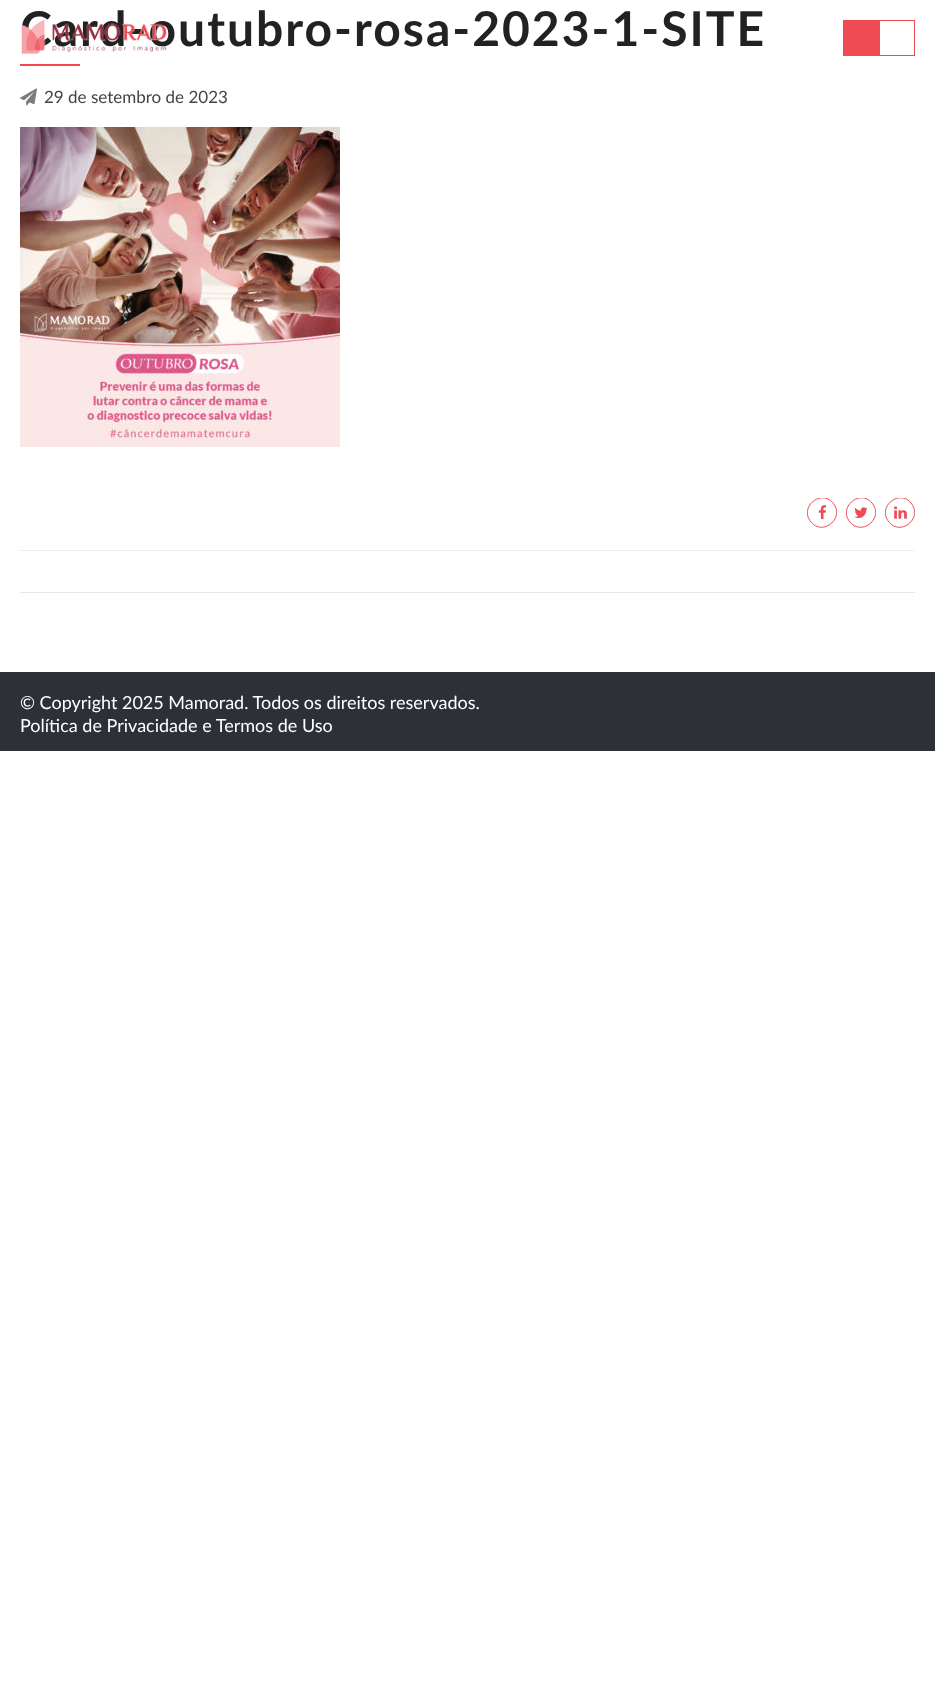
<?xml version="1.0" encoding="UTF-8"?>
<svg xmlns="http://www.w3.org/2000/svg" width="935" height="1688">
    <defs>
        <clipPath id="clip1"><rect x="807" y="498" width="30" height="30"/></clipPath>
        <clipPath id="clip2"><rect x="846" y="498" width="30" height="30"/></clipPath>
        <clipPath id="clip3"><rect x="885" y="498" width="30" height="30"/></clipPath>
    </defs>
    <rect width="100%" height="100%" fill="#FFFFFF"/>
    <text x="20" y="46" font-family="Lato" font-size="48" font-weight="700" letter-spacing="2" fill="#222222">Card-outubro-rosa-2023-1-SITE</text>
    <rect x="20" y="64" width="60" height="2" fill="#EE474F"/>
    <image x="20" y="88" width="17" height="18" href="img_01.png"/>
    <text x="44" y="103" font-family="Lato" font-size="17" fill="#444444">29 de setembro de 2023</text>
    <image x="20" y="127" width="320" height="320" href="img_02.png"/>
    <g clip-path="url(#clip1)">
        <path d="M 833 503 C 845.5 518 823 536.5 811 522 C 798.5 507.5 821 488.5 833 503 Z" fill="none" stroke="#EF4B54"/>
    </g>
    <image x="818" y="505" width="9" height="15" href="img_03.png"/>
    <g clip-path="url(#clip2)">
        <path d="M 872 503 C 884.5 518 862 536.5 850 522 C 837.5 507.5 860 488.5 872 503 Z" fill="none" stroke="#EF4B54"/>
    </g>
    <image x="854" y="507" width="14" height="11" href="img_04.png"/>
    <g clip-path="url(#clip3)">
        <path d="M 911 503 C 923.5 518 901 536.5 889 522 C 876.5 507.5 899 488.5 911 503 Z" fill="none" stroke="#EF4B54"/>
    </g>
    <image x="894" y="506" width="13" height="13" href="img_05.png"/>
    <rect x="20" y="550" width="895" height="1" fill="#EDEDED"/>
    <rect x="20" y="592" width="895" height="1" fill="#E6E6E6"/>
    <image x="21" y="19" width="146" height="36" href="img_06.png"/>
    <rect x="843" y="20" width="36" height="36" fill="#EF4B54"/>
    <rect x="879.5" y="20.5" width="35" height="35" fill="none" stroke="#EF4B54"/>
    <rect x="0" y="672" width="935" height="79" fill="#2E3037"/>
    <text font-family="Lato" font-size="18" fill="#FFFFFF">
        <tspan x="20" y="709">© Copyright 2025 Mamorad. Todos os direitos reservados.</tspan>
        <tspan x="20" y="732">Política de Privacidade e Termos de Uso</tspan>
    </text>
</svg>
